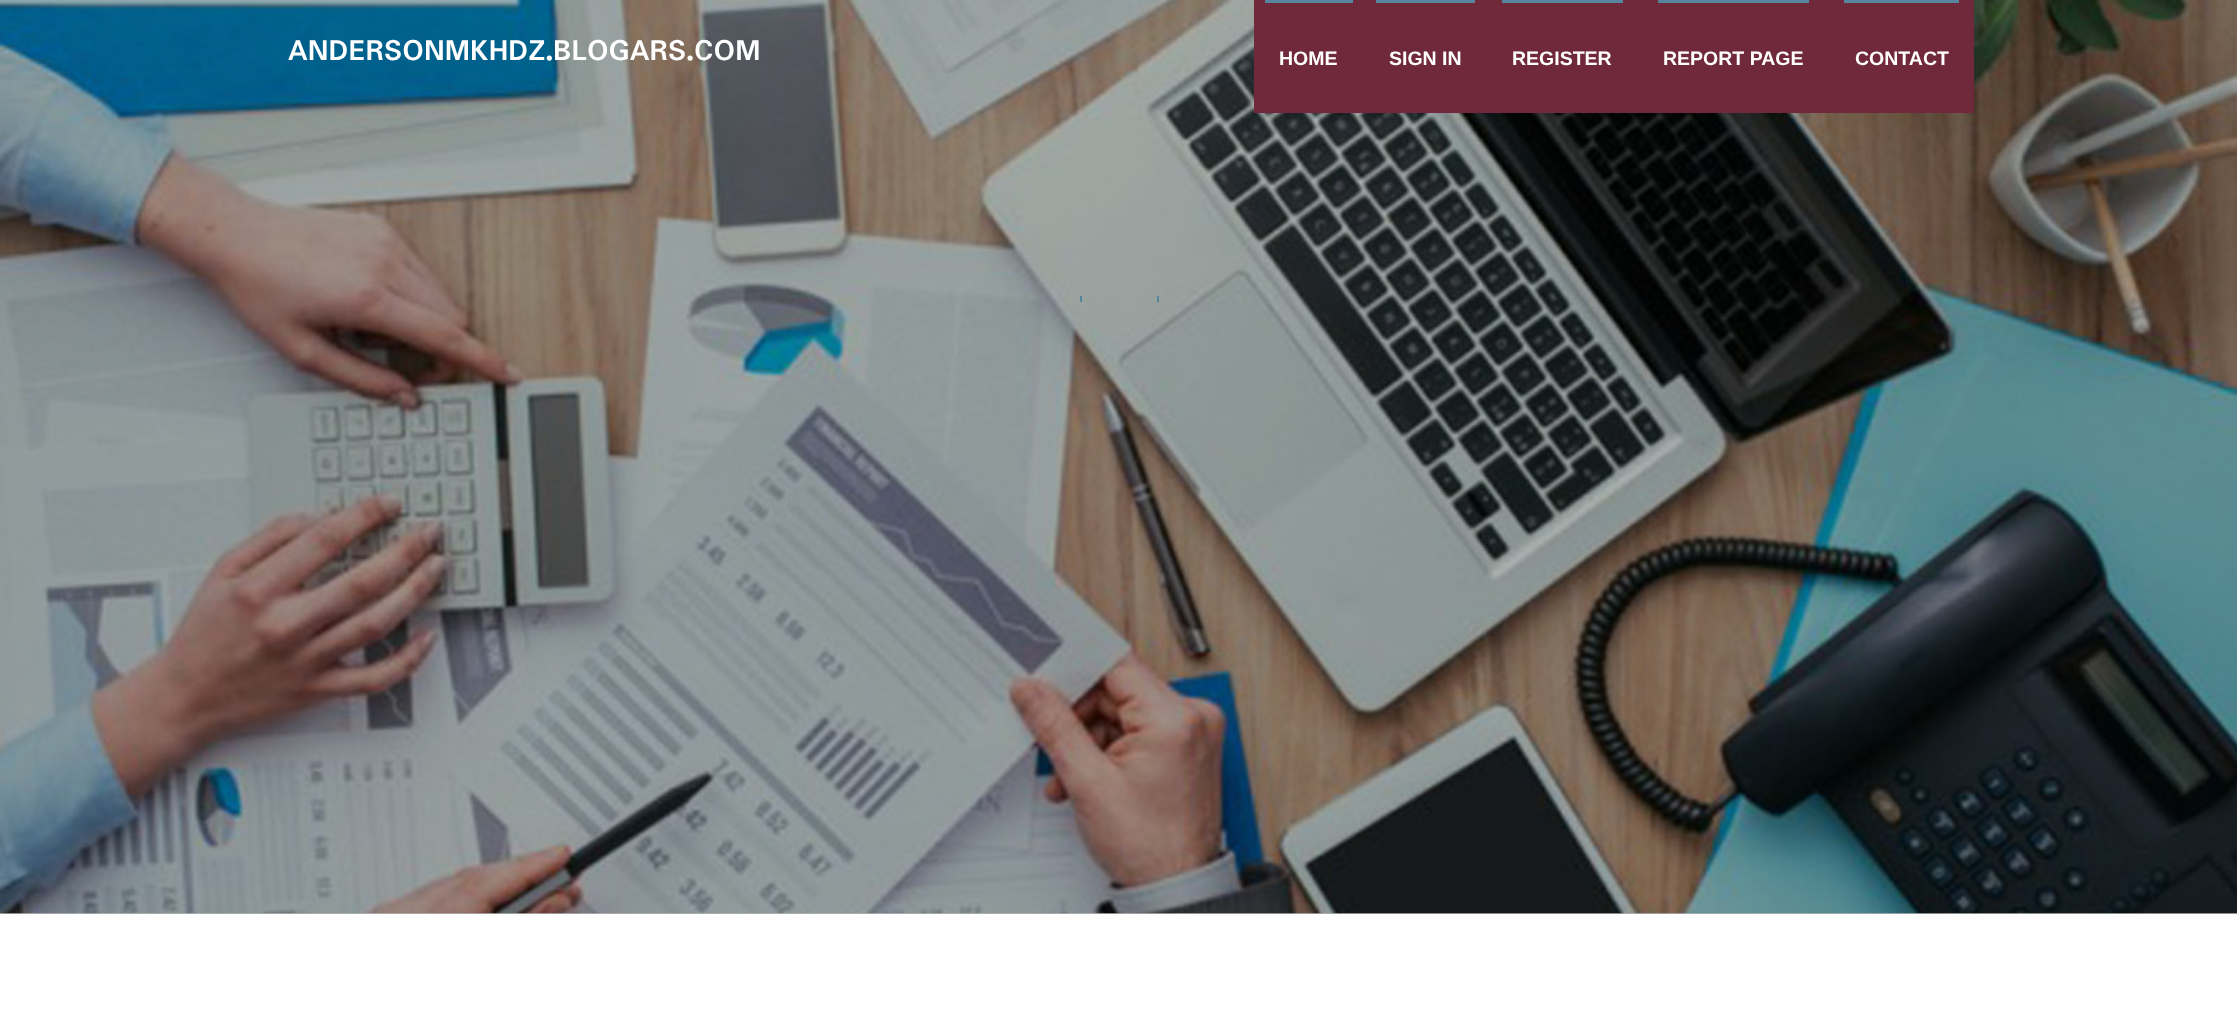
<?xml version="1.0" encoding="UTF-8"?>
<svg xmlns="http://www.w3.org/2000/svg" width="2237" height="1015">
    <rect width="100%" height="100%" fill="#FFFFFF"/>
    <rect x="0" y="913" width="2237" height="1" fill="#B3B3B3"/>
    <image x="0" y="0" width="2237" height="914" href="img_01.png"/>
    <rect x="1157" y="296" width="2" height="6" fill="#57859E"/>
    <rect x="1080" y="296" width="2" height="6" fill="#57859E"/>
    <text x="288" y="60" font-family="Padauk" font-size="31.5" font-weight="700" fill="#FFFFFF">ANDERSONMKHDZ.BLOGARS.COM</text>
    <rect x="1254" y="0" width="720" height="113" fill="#70283B"/>
    <rect x="1265" y="0" width="88" height="3" fill="#57859E"/>
    <text x="1279" y="65" font-family="Liberation Sans" font-size="19.5" font-weight="700" fill="#FFFFFF">HOME</text>
    <rect x="1376" y="0" width="99" height="3" fill="#57859E"/>
    <text x="1389" y="65" font-family="Liberation Sans" font-size="19.5" font-weight="700" fill="#FFFFFF">SIGN IN</text>
    <rect x="1502" y="0" width="121" height="3" fill="#57859E"/>
    <text x="1512" y="65" font-family="Liberation Sans" font-size="19.5" font-weight="700" fill="#FFFFFF">REGISTER</text>
    <rect x="1658" y="0" width="151" height="3" fill="#57859E"/>
    <text x="1663" y="65" font-family="Liberation Sans" font-size="19.5" font-weight="700" fill="#FFFFFF">REPORT PAGE</text>
    <rect x="1844" y="0" width="115" height="3" fill="#57859E"/>
    <text x="1855" y="65" font-family="Liberation Sans" font-size="19.5" font-weight="700" fill="#FFFFFF">CONTACT</text>
</svg>
